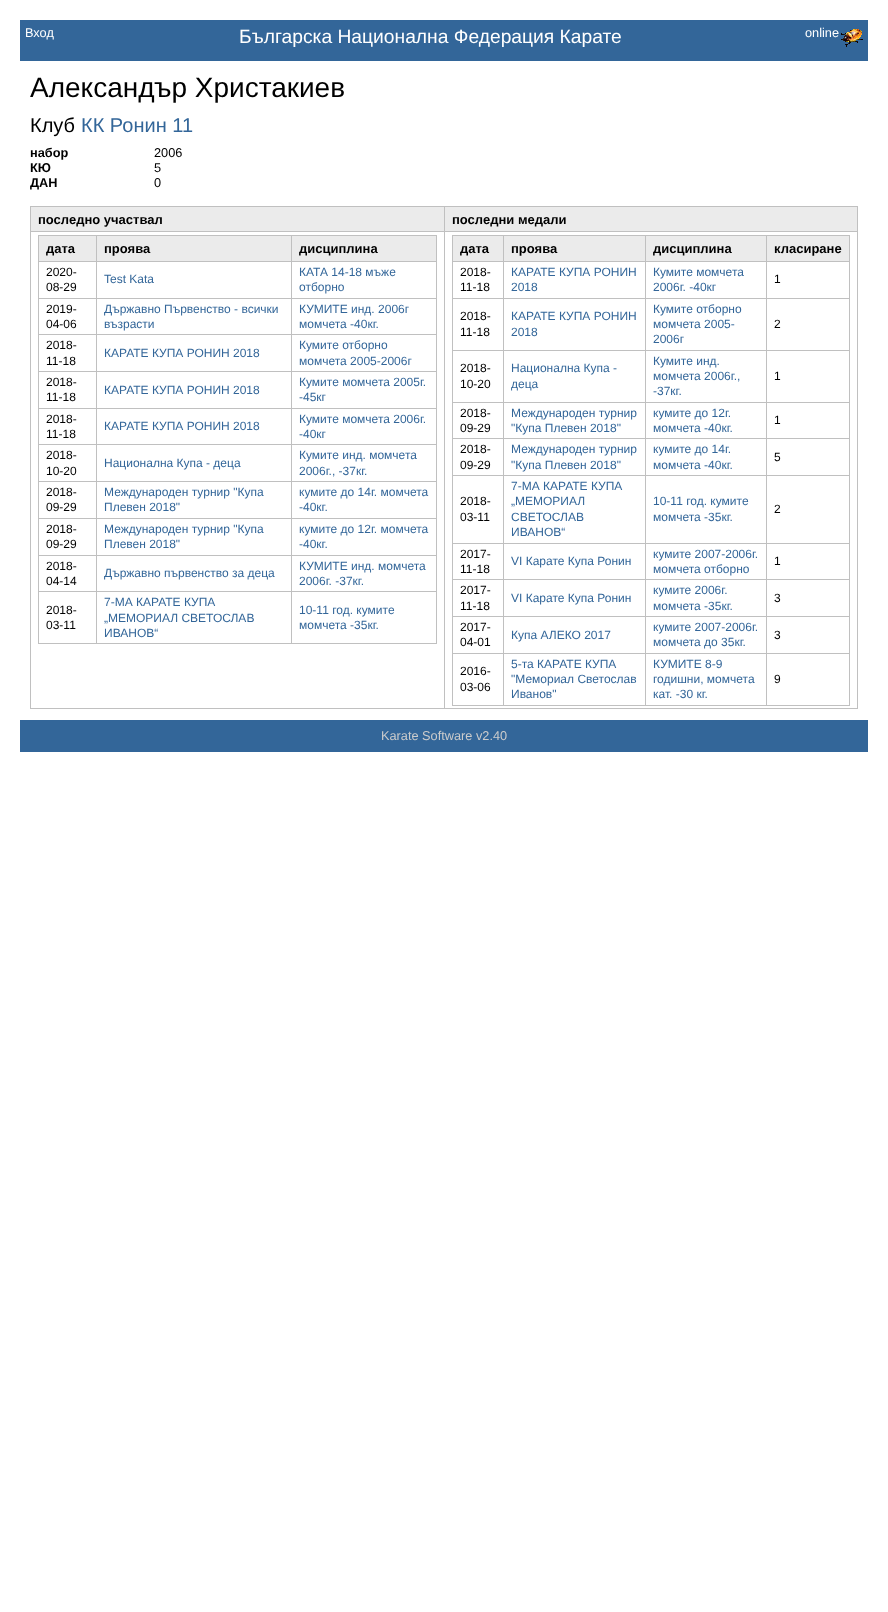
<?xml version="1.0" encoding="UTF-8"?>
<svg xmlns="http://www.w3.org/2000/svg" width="888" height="1612">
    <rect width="100%" height="100%" fill="#FFFFFF"/>
    <rect x="20" y="20" width="848" height="41" fill="#336699"/>
    <text x="25" y="37" font-family="Liberation Sans" font-size="12.75" fill="#FFFFFF">Вход</text>
    <text x="239" y="43" font-family="Liberation Sans" font-size="19.25" fill="#FFFFFF">Българска Национална Федерация Карате</text>
    <text x="805" y="37" font-family="Liberation Sans" font-size="12.75" fill="#FFFFFF">online</text>
    <image x="841" y="29" width="22" height="18" href="img_01.png"/>
    <text x="30" y="97" font-family="Liberation Sans" font-size="28" fill="#000000">Александър Христакиев</text>
    <text x="30" y="132" font-family="Liberation Sans" font-size="20" fill="#000000">Клуб</text>
    <text x="81" y="132" font-family="Liberation Sans" font-size="20" fill="#336699">КК Ронин 11</text>
    <text x="30" y="157" font-family="Liberation Sans" font-size="12.75" font-weight="700" fill="#000000">набор</text>
    <text x="154" y="157" font-family="Liberation Sans" font-size="12.75" fill="#000000">2006</text>
    <text x="30" y="172" font-family="Liberation Sans" font-size="12.75" font-weight="700" fill="#000000">КЮ</text>
    <text x="154" y="172" font-family="Liberation Sans" font-size="12.75" fill="#000000">5</text>
    <text x="30" y="187" font-family="Liberation Sans" font-size="12.75" font-weight="700" fill="#000000">ДАН</text>
    <text x="154" y="187" font-family="Liberation Sans" font-size="12.75" fill="#000000">0</text>
    <rect x="31" y="207" width="413" height="24" fill="#EBEBEB"/>
    <rect x="444" y="206" width="414" height="1" fill="#C0C0C0"/>
    <rect x="444" y="231" width="414" height="1" fill="#C0C0C0"/>
    <rect x="857" y="231" width="1" height="478" fill="#C0C0C0"/>
    <rect x="444" y="708" width="414" height="1" fill="#C0C0C0"/>
    <rect x="444" y="231" width="1" height="478" fill="#C0C0C0"/>
    <rect x="30" y="231" width="415" height="1" fill="#C0C0C0"/>
    <rect x="444" y="206" width="1" height="26" fill="#C0C0C0"/>
    <rect x="30" y="206" width="415" height="1" fill="#C0C0C0"/>
    <rect x="30" y="708" width="415" height="1" fill="#C0C0C0"/>
    <rect x="30" y="231" width="1" height="478" fill="#C0C0C0"/>
    <rect x="30" y="206" width="1" height="26" fill="#C0C0C0"/>
    <text x="38" y="224" font-family="Liberation Sans" font-size="13" font-weight="700" fill="#000000">последно участвал</text>
    <rect x="445" y="207" width="412" height="24" fill="#EBEBEB"/>
    <rect x="857" y="206" width="1" height="26" fill="#C0C0C0"/>
    <text x="452" y="224" font-family="Liberation Sans" font-size="13" font-weight="700" fill="#000000">последни медали</text>
    <rect x="39" y="236" width="57" height="25" fill="#EBEBEB"/>
    <rect x="291" y="235" width="146" height="1" fill="#C0C0C0"/>
    <rect x="291" y="261" width="146" height="1" fill="#C0C0C0"/>
    <rect x="291" y="298" width="146" height="1" fill="#C0C0C0"/>
    <rect x="291" y="334" width="146" height="1" fill="#C0C0C0"/>
    <rect x="291" y="371" width="146" height="1" fill="#C0C0C0"/>
    <rect x="291" y="408" width="146" height="1" fill="#C0C0C0"/>
    <rect x="291" y="444" width="146" height="1" fill="#C0C0C0"/>
    <rect x="291" y="481" width="146" height="1" fill="#C0C0C0"/>
    <rect x="291" y="518" width="146" height="1" fill="#C0C0C0"/>
    <rect x="291" y="555" width="146" height="1" fill="#C0C0C0"/>
    <rect x="291" y="591" width="146" height="1" fill="#C0C0C0"/>
    <rect x="436" y="591" width="1" height="53" fill="#C0C0C0"/>
    <rect x="291" y="643" width="146" height="1" fill="#C0C0C0"/>
    <rect x="291" y="591" width="1" height="53" fill="#C0C0C0"/>
    <rect x="96" y="591" width="196" height="1" fill="#C0C0C0"/>
    <rect x="291" y="555" width="1" height="37" fill="#C0C0C0"/>
    <rect x="96" y="555" width="196" height="1" fill="#C0C0C0"/>
    <rect x="291" y="518" width="1" height="38" fill="#C0C0C0"/>
    <rect x="96" y="518" width="196" height="1" fill="#C0C0C0"/>
    <rect x="291" y="481" width="1" height="38" fill="#C0C0C0"/>
    <rect x="96" y="481" width="196" height="1" fill="#C0C0C0"/>
    <rect x="291" y="444" width="1" height="38" fill="#C0C0C0"/>
    <rect x="96" y="444" width="196" height="1" fill="#C0C0C0"/>
    <rect x="291" y="408" width="1" height="37" fill="#C0C0C0"/>
    <rect x="96" y="408" width="196" height="1" fill="#C0C0C0"/>
    <rect x="291" y="371" width="1" height="38" fill="#C0C0C0"/>
    <rect x="96" y="371" width="196" height="1" fill="#C0C0C0"/>
    <rect x="291" y="334" width="1" height="38" fill="#C0C0C0"/>
    <rect x="96" y="334" width="196" height="1" fill="#C0C0C0"/>
    <rect x="291" y="298" width="1" height="37" fill="#C0C0C0"/>
    <rect x="96" y="298" width="196" height="1" fill="#C0C0C0"/>
    <rect x="291" y="261" width="1" height="38" fill="#C0C0C0"/>
    <rect x="96" y="261" width="196" height="1" fill="#C0C0C0"/>
    <rect x="291" y="235" width="1" height="27" fill="#C0C0C0"/>
    <rect x="96" y="235" width="196" height="1" fill="#C0C0C0"/>
    <rect x="96" y="643" width="196" height="1" fill="#C0C0C0"/>
    <rect x="96" y="591" width="1" height="53" fill="#C0C0C0"/>
    <rect x="38" y="591" width="59" height="1" fill="#C0C0C0"/>
    <rect x="96" y="555" width="1" height="37" fill="#C0C0C0"/>
    <rect x="38" y="555" width="59" height="1" fill="#C0C0C0"/>
    <rect x="96" y="518" width="1" height="38" fill="#C0C0C0"/>
    <rect x="38" y="518" width="59" height="1" fill="#C0C0C0"/>
    <rect x="96" y="481" width="1" height="38" fill="#C0C0C0"/>
    <rect x="38" y="481" width="59" height="1" fill="#C0C0C0"/>
    <rect x="96" y="444" width="1" height="38" fill="#C0C0C0"/>
    <rect x="38" y="444" width="59" height="1" fill="#C0C0C0"/>
    <rect x="96" y="408" width="1" height="37" fill="#C0C0C0"/>
    <rect x="38" y="408" width="59" height="1" fill="#C0C0C0"/>
    <rect x="96" y="371" width="1" height="38" fill="#C0C0C0"/>
    <rect x="38" y="371" width="59" height="1" fill="#C0C0C0"/>
    <rect x="96" y="334" width="1" height="38" fill="#C0C0C0"/>
    <rect x="38" y="334" width="59" height="1" fill="#C0C0C0"/>
    <rect x="96" y="298" width="1" height="37" fill="#C0C0C0"/>
    <rect x="38" y="298" width="59" height="1" fill="#C0C0C0"/>
    <rect x="96" y="261" width="1" height="38" fill="#C0C0C0"/>
    <rect x="38" y="261" width="59" height="1" fill="#C0C0C0"/>
    <rect x="96" y="235" width="1" height="27" fill="#C0C0C0"/>
    <rect x="38" y="235" width="59" height="1" fill="#C0C0C0"/>
    <rect x="38" y="643" width="59" height="1" fill="#C0C0C0"/>
    <rect x="38" y="591" width="1" height="53" fill="#C0C0C0"/>
    <rect x="38" y="555" width="1" height="37" fill="#C0C0C0"/>
    <rect x="38" y="518" width="1" height="38" fill="#C0C0C0"/>
    <rect x="38" y="481" width="1" height="38" fill="#C0C0C0"/>
    <rect x="38" y="444" width="1" height="38" fill="#C0C0C0"/>
    <rect x="38" y="408" width="1" height="37" fill="#C0C0C0"/>
    <rect x="38" y="371" width="1" height="38" fill="#C0C0C0"/>
    <rect x="38" y="334" width="1" height="38" fill="#C0C0C0"/>
    <rect x="38" y="298" width="1" height="37" fill="#C0C0C0"/>
    <rect x="38" y="261" width="1" height="38" fill="#C0C0C0"/>
    <rect x="38" y="235" width="1" height="27" fill="#C0C0C0"/>
    <text x="46" y="253" font-family="Liberation Sans" font-size="13" font-weight="700" fill="#000000">дата</text>
    <rect x="97" y="236" width="194" height="25" fill="#EBEBEB"/>
    <text x="104" y="253" font-family="Liberation Sans" font-size="13" font-weight="700" fill="#000000">проява</text>
    <rect x="292" y="236" width="144" height="25" fill="#EBEBEB"/>
    <rect x="436" y="555" width="1" height="37" fill="#C0C0C0"/>
    <rect x="436" y="518" width="1" height="38" fill="#C0C0C0"/>
    <rect x="436" y="481" width="1" height="38" fill="#C0C0C0"/>
    <rect x="436" y="444" width="1" height="38" fill="#C0C0C0"/>
    <rect x="436" y="408" width="1" height="37" fill="#C0C0C0"/>
    <rect x="436" y="371" width="1" height="38" fill="#C0C0C0"/>
    <rect x="436" y="334" width="1" height="38" fill="#C0C0C0"/>
    <rect x="436" y="298" width="1" height="37" fill="#C0C0C0"/>
    <rect x="436" y="261" width="1" height="38" fill="#C0C0C0"/>
    <rect x="436" y="235" width="1" height="27" fill="#C0C0C0"/>
    <text x="299" y="253" font-family="Liberation Sans" font-size="13" font-weight="700" fill="#000000">дисциплина</text>
    <text font-family="Liberation Sans" font-size="12" fill="#000000">
        <tspan x="46" y="276">2020-</tspan>
        <tspan x="46" y="291">08-29</tspan>
    </text>
    <text x="104" y="283" font-family="Liberation Sans" font-size="12" fill="#336699">Test Kata</text>
    <text font-family="Liberation Sans" font-size="12" fill="#336699">
        <tspan x="299" y="276">КАТА 14-18 мъже</tspan>
        <tspan x="299" y="291">отборно</tspan>
    </text>
    <text font-family="Liberation Sans" font-size="12" fill="#000000">
        <tspan x="46" y="313">2019-</tspan>
        <tspan x="46" y="328">04-06</tspan>
    </text>
    <text font-family="Liberation Sans" font-size="12" fill="#336699">
        <tspan x="104" y="313">Държавно Първенство - всички</tspan>
        <tspan x="104" y="328">възрасти</tspan>
    </text>
    <text font-family="Liberation Sans" font-size="12" fill="#336699">
        <tspan x="299" y="313">КУМИТЕ инд. 2006г</tspan>
        <tspan x="299" y="328">момчета -40кг.</tspan>
    </text>
    <text font-family="Liberation Sans" font-size="12" fill="#000000">
        <tspan x="46" y="349">2018-</tspan>
        <tspan x="46" y="365">11-18</tspan>
    </text>
    <text x="104" y="357" font-family="Liberation Sans" font-size="12" fill="#336699">КАРАТЕ КУПА РОНИН 2018</text>
    <text font-family="Liberation Sans" font-size="12" fill="#336699">
        <tspan x="299" y="349">Кумите отборно</tspan>
        <tspan x="299" y="365">момчета 2005-2006г</tspan>
    </text>
    <text font-family="Liberation Sans" font-size="12" fill="#000000">
        <tspan x="46" y="386">2018-</tspan>
        <tspan x="46" y="401">11-18</tspan>
    </text>
    <text x="104" y="394" font-family="Liberation Sans" font-size="12" fill="#336699">КАРАТЕ КУПА РОНИН 2018</text>
    <text font-family="Liberation Sans" font-size="12" fill="#336699">
        <tspan x="299" y="386">Кумите момчета 2005г.</tspan>
        <tspan x="299" y="401">-45кг</tspan>
    </text>
    <text font-family="Liberation Sans" font-size="12" fill="#000000">
        <tspan x="46" y="423">2018-</tspan>
        <tspan x="46" y="438">11-18</tspan>
    </text>
    <text x="104" y="430" font-family="Liberation Sans" font-size="12" fill="#336699">КАРАТЕ КУПА РОНИН 2018</text>
    <text font-family="Liberation Sans" font-size="12" fill="#336699">
        <tspan x="299" y="423">Кумите момчета 2006г.</tspan>
        <tspan x="299" y="438">-40кг</tspan>
    </text>
    <text font-family="Liberation Sans" font-size="12" fill="#000000">
        <tspan x="46" y="459">2018-</tspan>
        <tspan x="46" y="475">10-20</tspan>
    </text>
    <text x="104" y="467" font-family="Liberation Sans" font-size="12" fill="#336699">Национална Купа - деца</text>
    <text font-family="Liberation Sans" font-size="12" fill="#336699">
        <tspan x="299" y="459">Кумите инд. момчета</tspan>
        <tspan x="299" y="475">2006г., -37кг.</tspan>
    </text>
    <text font-family="Liberation Sans" font-size="12" fill="#000000">
        <tspan x="46" y="496">2018-</tspan>
        <tspan x="46" y="511">09-29</tspan>
    </text>
    <text font-family="Liberation Sans" font-size="12" fill="#336699">
        <tspan x="104" y="496">Международен турнир "Купа</tspan>
        <tspan x="104" y="511">Плевен 2018"</tspan>
    </text>
    <text font-family="Liberation Sans" font-size="12" fill="#336699">
        <tspan x="299" y="496">кумите до 14г. момчета</tspan>
        <tspan x="299" y="511">-40кг.</tspan>
    </text>
    <text font-family="Liberation Sans" font-size="12" fill="#000000">
        <tspan x="46" y="533">2018-</tspan>
        <tspan x="46" y="548">09-29</tspan>
    </text>
    <text font-family="Liberation Sans" font-size="12" fill="#336699">
        <tspan x="104" y="533">Международен турнир "Купа</tspan>
        <tspan x="104" y="548">Плевен 2018"</tspan>
    </text>
    <text font-family="Liberation Sans" font-size="12" fill="#336699">
        <tspan x="299" y="533">кумите до 12г. момчета</tspan>
        <tspan x="299" y="548">-40кг.</tspan>
    </text>
    <text font-family="Liberation Sans" font-size="12" fill="#000000">
        <tspan x="46" y="570">2018-</tspan>
        <tspan x="46" y="585">04-14</tspan>
    </text>
    <text x="104" y="577" font-family="Liberation Sans" font-size="12" fill="#336699">Държавно първенство за деца</text>
    <text font-family="Liberation Sans" font-size="12" fill="#336699">
        <tspan x="299" y="570">КУМИТЕ инд. момчета</tspan>
        <tspan x="299" y="585">2006г. -37кг.</tspan>
    </text>
    <text font-family="Liberation Sans" font-size="12" fill="#000000">
        <tspan x="46" y="614">2018-</tspan>
        <tspan x="46" y="629">03-11</tspan>
    </text>
    <text font-family="Liberation Sans" font-size="12" fill="#336699">
        <tspan x="104" y="606">7-МА КАРАТЕ КУПА</tspan>
        <tspan x="104" y="622">„МЕМОРИАЛ СВЕТОСЛАВ</tspan>
        <tspan x="104" y="637">ИВАНОВ“</tspan>
    </text>
    <text font-family="Liberation Sans" font-size="12" fill="#336699">
        <tspan x="299" y="614">10-11 год. кумите</tspan>
        <tspan x="299" y="629">момчета -35кг.</tspan>
    </text>
    <rect x="453" y="236" width="50" height="25" fill="#EBEBEB"/>
    <rect x="766" y="235" width="84" height="1" fill="#C0C0C0"/>
    <rect x="766" y="261" width="84" height="1" fill="#C0C0C0"/>
    <rect x="766" y="298" width="84" height="1" fill="#C0C0C0"/>
    <rect x="766" y="350" width="84" height="1" fill="#C0C0C0"/>
    <rect x="766" y="402" width="84" height="1" fill="#C0C0C0"/>
    <rect x="766" y="438" width="84" height="1" fill="#C0C0C0"/>
    <rect x="766" y="475" width="84" height="1" fill="#C0C0C0"/>
    <rect x="766" y="543" width="84" height="1" fill="#C0C0C0"/>
    <rect x="766" y="579" width="84" height="1" fill="#C0C0C0"/>
    <rect x="766" y="616" width="84" height="1" fill="#C0C0C0"/>
    <rect x="766" y="653" width="84" height="1" fill="#C0C0C0"/>
    <rect x="849" y="653" width="1" height="53" fill="#C0C0C0"/>
    <rect x="766" y="705" width="84" height="1" fill="#C0C0C0"/>
    <rect x="766" y="653" width="1" height="53" fill="#C0C0C0"/>
    <rect x="645" y="653" width="122" height="1" fill="#C0C0C0"/>
    <rect x="766" y="616" width="1" height="38" fill="#C0C0C0"/>
    <rect x="645" y="616" width="122" height="1" fill="#C0C0C0"/>
    <rect x="766" y="579" width="1" height="38" fill="#C0C0C0"/>
    <rect x="645" y="579" width="122" height="1" fill="#C0C0C0"/>
    <rect x="766" y="543" width="1" height="37" fill="#C0C0C0"/>
    <rect x="645" y="543" width="122" height="1" fill="#C0C0C0"/>
    <rect x="766" y="475" width="1" height="69" fill="#C0C0C0"/>
    <rect x="645" y="475" width="122" height="1" fill="#C0C0C0"/>
    <rect x="766" y="438" width="1" height="38" fill="#C0C0C0"/>
    <rect x="645" y="438" width="122" height="1" fill="#C0C0C0"/>
    <rect x="766" y="402" width="1" height="37" fill="#C0C0C0"/>
    <rect x="645" y="402" width="122" height="1" fill="#C0C0C0"/>
    <rect x="766" y="350" width="1" height="53" fill="#C0C0C0"/>
    <rect x="645" y="350" width="122" height="1" fill="#C0C0C0"/>
    <rect x="766" y="298" width="1" height="53" fill="#C0C0C0"/>
    <rect x="645" y="298" width="122" height="1" fill="#C0C0C0"/>
    <rect x="766" y="261" width="1" height="38" fill="#C0C0C0"/>
    <rect x="645" y="261" width="122" height="1" fill="#C0C0C0"/>
    <rect x="766" y="235" width="1" height="27" fill="#C0C0C0"/>
    <rect x="645" y="235" width="122" height="1" fill="#C0C0C0"/>
    <rect x="645" y="705" width="122" height="1" fill="#C0C0C0"/>
    <rect x="645" y="653" width="1" height="53" fill="#C0C0C0"/>
    <rect x="503" y="653" width="143" height="1" fill="#C0C0C0"/>
    <rect x="645" y="616" width="1" height="38" fill="#C0C0C0"/>
    <rect x="503" y="616" width="143" height="1" fill="#C0C0C0"/>
    <rect x="645" y="579" width="1" height="38" fill="#C0C0C0"/>
    <rect x="503" y="579" width="143" height="1" fill="#C0C0C0"/>
    <rect x="645" y="543" width="1" height="37" fill="#C0C0C0"/>
    <rect x="503" y="543" width="143" height="1" fill="#C0C0C0"/>
    <rect x="645" y="475" width="1" height="69" fill="#C0C0C0"/>
    <rect x="503" y="475" width="143" height="1" fill="#C0C0C0"/>
    <rect x="645" y="438" width="1" height="38" fill="#C0C0C0"/>
    <rect x="503" y="438" width="143" height="1" fill="#C0C0C0"/>
    <rect x="645" y="402" width="1" height="37" fill="#C0C0C0"/>
    <rect x="503" y="402" width="143" height="1" fill="#C0C0C0"/>
    <rect x="645" y="350" width="1" height="53" fill="#C0C0C0"/>
    <rect x="503" y="350" width="143" height="1" fill="#C0C0C0"/>
    <rect x="645" y="298" width="1" height="53" fill="#C0C0C0"/>
    <rect x="503" y="298" width="143" height="1" fill="#C0C0C0"/>
    <rect x="645" y="261" width="1" height="38" fill="#C0C0C0"/>
    <rect x="503" y="261" width="143" height="1" fill="#C0C0C0"/>
    <rect x="645" y="235" width="1" height="27" fill="#C0C0C0"/>
    <rect x="503" y="235" width="143" height="1" fill="#C0C0C0"/>
    <rect x="503" y="705" width="143" height="1" fill="#C0C0C0"/>
    <rect x="503" y="653" width="1" height="53" fill="#C0C0C0"/>
    <rect x="452" y="653" width="52" height="1" fill="#C0C0C0"/>
    <rect x="503" y="616" width="1" height="38" fill="#C0C0C0"/>
    <rect x="452" y="616" width="52" height="1" fill="#C0C0C0"/>
    <rect x="503" y="579" width="1" height="38" fill="#C0C0C0"/>
    <rect x="452" y="579" width="52" height="1" fill="#C0C0C0"/>
    <rect x="503" y="543" width="1" height="37" fill="#C0C0C0"/>
    <rect x="452" y="543" width="52" height="1" fill="#C0C0C0"/>
    <rect x="503" y="475" width="1" height="69" fill="#C0C0C0"/>
    <rect x="452" y="475" width="52" height="1" fill="#C0C0C0"/>
    <rect x="503" y="438" width="1" height="38" fill="#C0C0C0"/>
    <rect x="452" y="438" width="52" height="1" fill="#C0C0C0"/>
    <rect x="503" y="402" width="1" height="37" fill="#C0C0C0"/>
    <rect x="452" y="402" width="52" height="1" fill="#C0C0C0"/>
    <rect x="503" y="350" width="1" height="53" fill="#C0C0C0"/>
    <rect x="452" y="350" width="52" height="1" fill="#C0C0C0"/>
    <rect x="503" y="298" width="1" height="53" fill="#C0C0C0"/>
    <rect x="452" y="298" width="52" height="1" fill="#C0C0C0"/>
    <rect x="503" y="261" width="1" height="38" fill="#C0C0C0"/>
    <rect x="452" y="261" width="52" height="1" fill="#C0C0C0"/>
    <rect x="503" y="235" width="1" height="27" fill="#C0C0C0"/>
    <rect x="452" y="235" width="52" height="1" fill="#C0C0C0"/>
    <rect x="452" y="705" width="52" height="1" fill="#C0C0C0"/>
    <rect x="452" y="653" width="1" height="53" fill="#C0C0C0"/>
    <rect x="452" y="616" width="1" height="38" fill="#C0C0C0"/>
    <rect x="452" y="579" width="1" height="38" fill="#C0C0C0"/>
    <rect x="452" y="543" width="1" height="37" fill="#C0C0C0"/>
    <rect x="452" y="475" width="1" height="69" fill="#C0C0C0"/>
    <rect x="452" y="438" width="1" height="38" fill="#C0C0C0"/>
    <rect x="452" y="402" width="1" height="37" fill="#C0C0C0"/>
    <rect x="452" y="350" width="1" height="53" fill="#C0C0C0"/>
    <rect x="452" y="298" width="1" height="53" fill="#C0C0C0"/>
    <rect x="452" y="261" width="1" height="38" fill="#C0C0C0"/>
    <rect x="452" y="235" width="1" height="27" fill="#C0C0C0"/>
    <text x="460" y="253" font-family="Liberation Sans" font-size="13" font-weight="700" fill="#000000">дата</text>
    <rect x="504" y="236" width="141" height="25" fill="#EBEBEB"/>
    <text x="511" y="253" font-family="Liberation Sans" font-size="13" font-weight="700" fill="#000000">проява</text>
    <rect x="646" y="236" width="120" height="25" fill="#EBEBEB"/>
    <text x="653" y="253" font-family="Liberation Sans" font-size="13" font-weight="700" fill="#000000">дисциплина</text>
    <rect x="767" y="236" width="82" height="25" fill="#EBEBEB"/>
    <rect x="849" y="616" width="1" height="38" fill="#C0C0C0"/>
    <rect x="849" y="579" width="1" height="38" fill="#C0C0C0"/>
    <rect x="849" y="543" width="1" height="37" fill="#C0C0C0"/>
    <rect x="849" y="475" width="1" height="69" fill="#C0C0C0"/>
    <rect x="849" y="438" width="1" height="38" fill="#C0C0C0"/>
    <rect x="849" y="402" width="1" height="37" fill="#C0C0C0"/>
    <rect x="849" y="350" width="1" height="53" fill="#C0C0C0"/>
    <rect x="849" y="298" width="1" height="53" fill="#C0C0C0"/>
    <rect x="849" y="261" width="1" height="38" fill="#C0C0C0"/>
    <rect x="849" y="235" width="1" height="27" fill="#C0C0C0"/>
    <text x="774" y="253" font-family="Liberation Sans" font-size="13" font-weight="700" fill="#000000">класиране</text>
    <text font-family="Liberation Sans" font-size="12" fill="#000000">
        <tspan x="460" y="276">2018-</tspan>
        <tspan x="460" y="291">11-18</tspan>
    </text>
    <text font-family="Liberation Sans" font-size="12" fill="#336699">
        <tspan x="511" y="276">КАРАТЕ КУПА РОНИН</tspan>
        <tspan x="511" y="291">2018</tspan>
    </text>
    <text font-family="Liberation Sans" font-size="12" fill="#336699">
        <tspan x="653" y="276">Кумите момчета</tspan>
        <tspan x="653" y="291">2006г. -40кг</tspan>
    </text>
    <text x="774" y="283" font-family="Liberation Sans" font-size="12" fill="#000000">1</text>
    <text font-family="Liberation Sans" font-size="12" fill="#000000">
        <tspan x="460" y="320">2018-</tspan>
        <tspan x="460" y="336">11-18</tspan>
    </text>
    <text font-family="Liberation Sans" font-size="12" fill="#336699">
        <tspan x="511" y="320">КАРАТЕ КУПА РОНИН</tspan>
        <tspan x="511" y="336">2018</tspan>
    </text>
    <text font-family="Liberation Sans" font-size="12" fill="#336699">
        <tspan x="653" y="313">Кумите отборно</tspan>
        <tspan x="653" y="328">момчета 2005-</tspan>
        <tspan x="653" y="343">2006г</tspan>
    </text>
    <text x="774" y="328" font-family="Liberation Sans" font-size="12" fill="#000000">2</text>
    <text font-family="Liberation Sans" font-size="12" fill="#000000">
        <tspan x="460" y="372">2018-</tspan>
        <tspan x="460" y="388">10-20</tspan>
    </text>
    <text font-family="Liberation Sans" font-size="12" fill="#336699">
        <tspan x="511" y="372">Национална Купа -</tspan>
        <tspan x="511" y="388">деца</tspan>
    </text>
    <text font-family="Liberation Sans" font-size="12" fill="#336699">
        <tspan x="653" y="365">Кумите инд.</tspan>
        <tspan x="653" y="380">момчета 2006г.,</tspan>
        <tspan x="653" y="395">-37кг.</tspan>
    </text>
    <text x="774" y="380" font-family="Liberation Sans" font-size="12" fill="#000000">1</text>
    <text font-family="Liberation Sans" font-size="12" fill="#000000">
        <tspan x="460" y="417">2018-</tspan>
        <tspan x="460" y="432">09-29</tspan>
    </text>
    <text font-family="Liberation Sans" font-size="12" fill="#336699">
        <tspan x="511" y="417">Международен турнир</tspan>
        <tspan x="511" y="432">"Купа Плевен 2018"</tspan>
    </text>
    <text font-family="Liberation Sans" font-size="12" fill="#336699">
        <tspan x="653" y="417">кумите до 12г.</tspan>
        <tspan x="653" y="432">момчета -40кг.</tspan>
    </text>
    <text x="774" y="424" font-family="Liberation Sans" font-size="12" fill="#000000">1</text>
    <text font-family="Liberation Sans" font-size="12" fill="#000000">
        <tspan x="460" y="453">2018-</tspan>
        <tspan x="460" y="469">09-29</tspan>
    </text>
    <text font-family="Liberation Sans" font-size="12" fill="#336699">
        <tspan x="511" y="453">Международен турнир</tspan>
        <tspan x="511" y="469">"Купа Плевен 2018"</tspan>
    </text>
    <text font-family="Liberation Sans" font-size="12" fill="#336699">
        <tspan x="653" y="453">кумите до 14г.</tspan>
        <tspan x="653" y="469">момчета -40кг.</tspan>
    </text>
    <text x="774" y="461" font-family="Liberation Sans" font-size="12" fill="#000000">5</text>
    <text font-family="Liberation Sans" font-size="12" fill="#000000">
        <tspan x="460" y="505">2018-</tspan>
        <tspan x="460" y="521">03-11</tspan>
    </text>
    <text font-family="Liberation Sans" font-size="12" fill="#336699">
        <tspan x="511" y="490">7-МА КАРАТЕ КУПА</tspan>
        <tspan x="511" y="505">„МЕМОРИАЛ</tspan>
        <tspan x="511" y="521">СВЕТОСЛАВ</tspan>
        <tspan x="511" y="536">ИВАНОВ“</tspan>
    </text>
    <text font-family="Liberation Sans" font-size="12" fill="#336699">
        <tspan x="653" y="505">10-11 год. кумите</tspan>
        <tspan x="653" y="521">момчета -35кг.</tspan>
    </text>
    <text x="774" y="513" font-family="Liberation Sans" font-size="12" fill="#000000">2</text>
    <text font-family="Liberation Sans" font-size="12" fill="#000000">
        <tspan x="460" y="558">2017-</tspan>
        <tspan x="460" y="573">11-18</tspan>
    </text>
    <text x="511" y="565" font-family="Liberation Sans" font-size="12" fill="#336699">VI Карате Купа Ронин</text>
    <text font-family="Liberation Sans" font-size="12" fill="#336699">
        <tspan x="653" y="558">кумите 2007-2006г.</tspan>
        <tspan x="653" y="573">момчета отборно</tspan>
    </text>
    <text x="774" y="565" font-family="Liberation Sans" font-size="12" fill="#000000">1</text>
    <text font-family="Liberation Sans" font-size="12" fill="#000000">
        <tspan x="460" y="594">2017-</tspan>
        <tspan x="460" y="610">11-18</tspan>
    </text>
    <text x="511" y="602" font-family="Liberation Sans" font-size="12" fill="#336699">VI Карате Купа Ронин</text>
    <text font-family="Liberation Sans" font-size="12" fill="#336699">
        <tspan x="653" y="594">кумите 2006г.</tspan>
        <tspan x="653" y="610">момчета -35кг.</tspan>
    </text>
    <text x="774" y="602" font-family="Liberation Sans" font-size="12" fill="#000000">3</text>
    <text font-family="Liberation Sans" font-size="12" fill="#000000">
        <tspan x="460" y="631">2017-</tspan>
        <tspan x="460" y="646">04-01</tspan>
    </text>
    <text x="511" y="639" font-family="Liberation Sans" font-size="12" fill="#336699">Купа АЛЕКО 2017</text>
    <text font-family="Liberation Sans" font-size="12" fill="#336699">
        <tspan x="653" y="631">кумите 2007-2006г.</tspan>
        <tspan x="653" y="646">момчета до 35кг.</tspan>
    </text>
    <text x="774" y="639" font-family="Liberation Sans" font-size="12" fill="#000000">3</text>
    <text font-family="Liberation Sans" font-size="12" fill="#000000">
        <tspan x="460" y="675">2016-</tspan>
        <tspan x="460" y="691">03-06</tspan>
    </text>
    <text font-family="Liberation Sans" font-size="12" fill="#336699">
        <tspan x="511" y="668">5-та КАРАТЕ КУПА</tspan>
        <tspan x="511" y="683">"Мемориал Светослав</tspan>
        <tspan x="511" y="698">Иванов"</tspan>
    </text>
    <text font-family="Liberation Sans" font-size="12" fill="#336699">
        <tspan x="653" y="668">КУМИТЕ 8-9</tspan>
        <tspan x="653" y="683">годишни, момчета</tspan>
        <tspan x="653" y="698">кат. -30 кг.</tspan>
    </text>
    <text x="774" y="683" font-family="Liberation Sans" font-size="12" fill="#000000">9</text>
    <rect x="20" y="720" width="848" height="32" fill="#336699"/>
    <text x="381" y="740" font-family="Liberation Sans" font-size="12.75" fill="#CCCCCC">Karate Software v2.40</text>
</svg>
